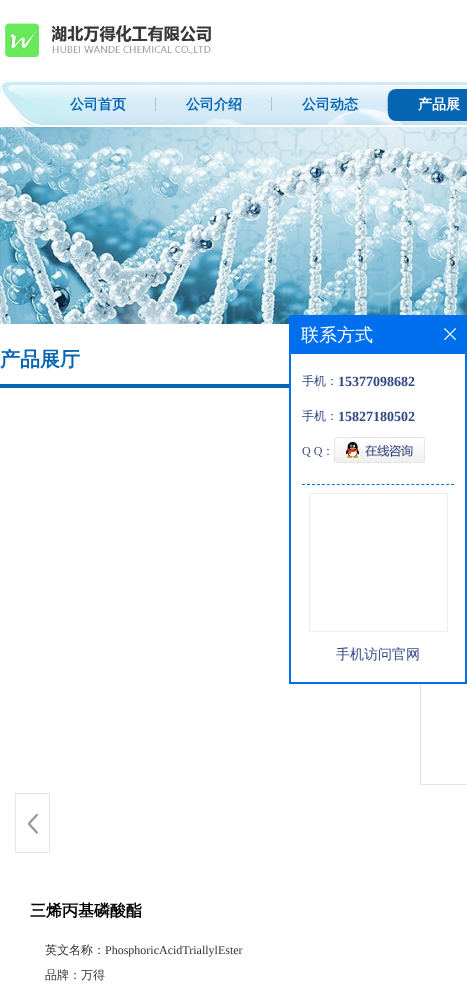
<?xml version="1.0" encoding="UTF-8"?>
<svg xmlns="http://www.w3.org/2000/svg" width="467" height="999">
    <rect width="100%" height="100%" fill="#FFFFFF"/>
    <image x="5" y="23" width="206" height="34" href="img_01.png"/>
    <image x="0" y="80" width="467" height="47" href="img_02.png"/>
    <image x="155" y="97" width="1" height="14" href="img_03.png"/>
    <text x="70" y="109" font-family="WenQuanYi Zen Hei" font-size="14" font-weight="700" fill="#0565B2">公司首页</text>
    <image x="271" y="97" width="1" height="14" href="img_03.png"/>
    <text x="186" y="109" font-family="WenQuanYi Zen Hei" font-size="14" font-weight="700" fill="#0565B2">公司介绍</text>
    <image x="387" y="97" width="1" height="14" href="img_03.png"/>
    <text x="302" y="109" font-family="WenQuanYi Zen Hei" font-size="14" font-weight="700" fill="#0565B2">公司动态</text>
    <rect x="388" y="89" width="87" height="32" rx="8" fill="#0565B2"/>
    <text x="418" y="109" font-family="WenQuanYi Zen Hei" font-size="14" font-weight="700" fill="#FFFFFF">产品展</text>
    <image x="0" y="127" width="467" height="197" href="img_04.png"/>
    <rect x="0" y="384" width="289" height="4" fill="#0565B2"/>
    <text x="0" y="366" font-family="WenQuanYi Zen Hei" font-size="20" font-weight="700" fill="#0565B2">产品展厅</text>
    <rect x="420.5" y="423.5" width="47" height="361" fill="none" stroke="#E4E4E4"/>
    <image x="28" y="813" width="10" height="21" href="img_05.png"/>
    <rect x="15.5" y="793.5" width="34" height="59" fill="none" stroke="#E5E5E5"/>
    <text x="30" y="916" font-family="WenQuanYi Zen Hei" font-size="16" font-weight="700" fill="#000000">三烯丙基磷酸酯</text>
    <text x="45" y="954" font-family="WenQuanYi Zen Hei" font-size="12" font-weight="500" fill="#333333">英文名称：</text>
    <text x="105" y="954" font-family="Liberation Serif" font-size="12" fill="#333333">PhosphoricAcidTriallylEster</text>
    <text x="45" y="979" font-family="WenQuanYi Zen Hei" font-size="12" font-weight="500" fill="#333333">品牌：万得</text>
    <rect x="289" y="315" width="178" height="369" fill="#006FED"/>
    <text x="301" y="341" font-family="WenQuanYi Zen Hei" font-size="18" font-weight="500" fill="#FFFFFF">联系方式</text>
    <image x="444" y="328" width="12" height="12" href="img_06.png"/>
    <rect x="291" y="354" width="174" height="328" fill="#FFFFFF"/>
    <path d="M 302 484.5 H 454" fill="none" stroke="#006FED" stroke-dasharray="3 1.97"/>
    <text x="302" y="385" font-family="WenQuanYi Zen Hei" font-size="12" font-weight="500" fill="#314985">手机：</text>
    <text x="338" y="386" font-family="Liberation Serif" font-size="14" font-weight="700" fill="#314985">15377098682</text>
    <text x="302" y="420" font-family="WenQuanYi Zen Hei" font-size="12" font-weight="500" fill="#314985">手机：</text>
    <text x="338" y="421" font-family="Liberation Serif" font-size="14" font-weight="700" fill="#314985">15827180502</text>
    <text x="302" y="455" font-family="Liberation Serif" font-size="12" fill="#314985">Q Q</text>
    <text x="322" y="455" font-family="WenQuanYi Zen Hei" font-size="12" font-weight="500" fill="#314985">：</text>
    <image x="334" y="437" width="91" height="26" href="img_07.png"/>
    <rect x="309.5" y="493.5" width="138" height="138" fill="none" stroke="#EEEEEE"/>
    <text x="336" y="659" font-family="WenQuanYi Zen Hei" font-size="14" font-weight="500" fill="#314985">手机访问官网</text>
</svg>
